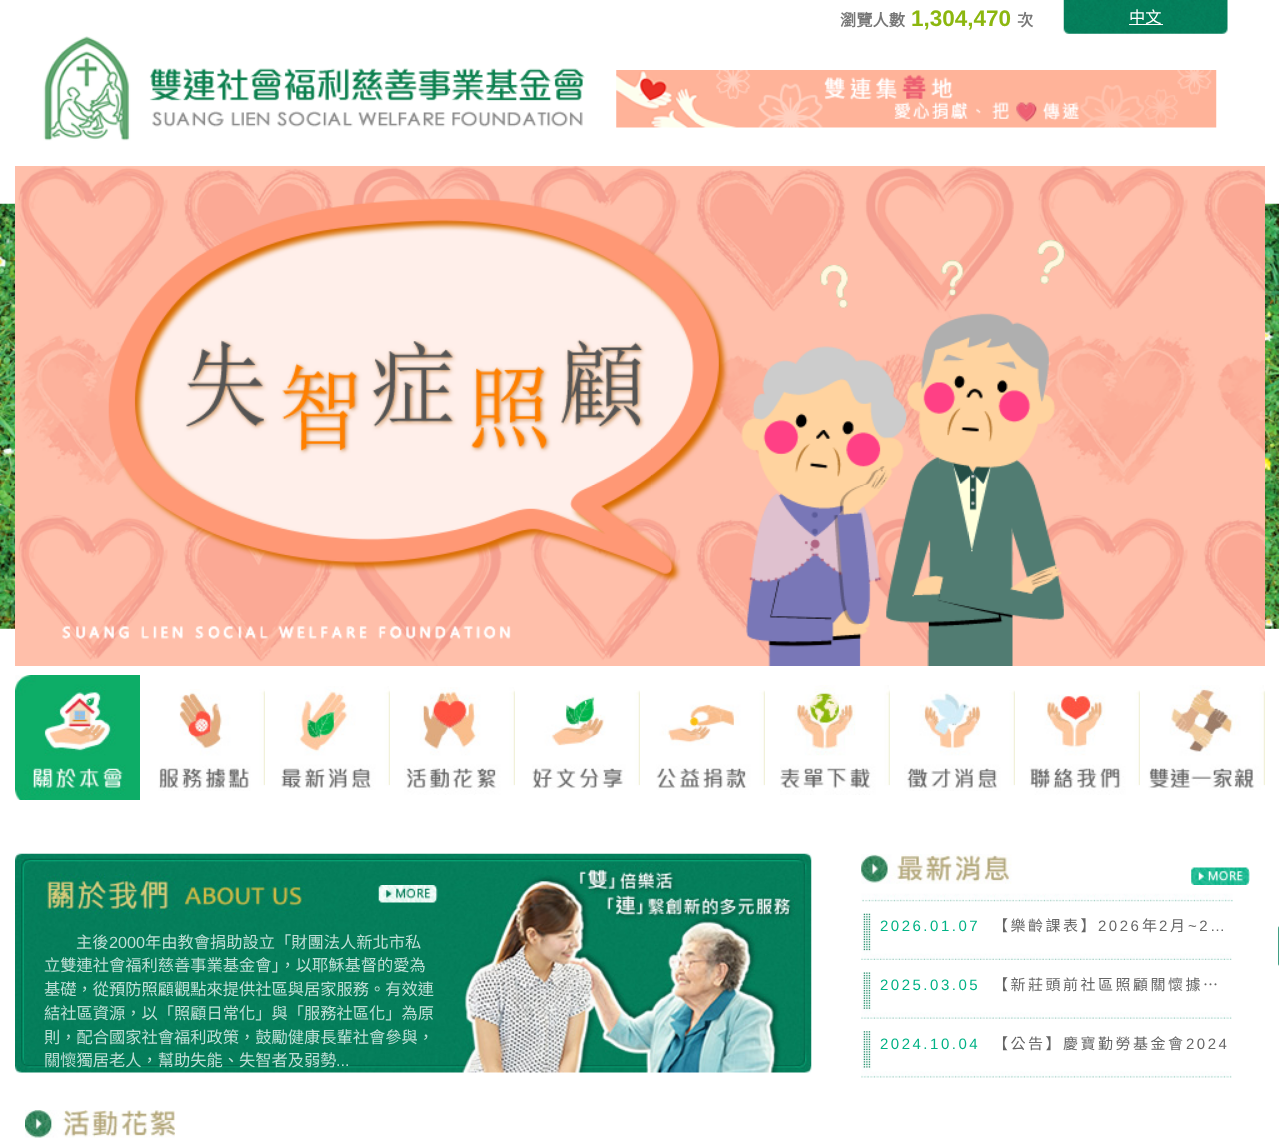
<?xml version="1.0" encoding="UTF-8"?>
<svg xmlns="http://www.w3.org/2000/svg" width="1279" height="1147">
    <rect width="100%" height="100%" fill="#FFFFFF"/>
    <text x="840" y="26" font-family="Noto Sans CJK TC" font-size="16.25" font-weight="700" fill="#777777">瀏覽人數</text>
    <text x="911" y="26" font-family="Liberation Sans" font-size="22.5" font-weight="700" fill="#8CB70F">1,304,470</text>
    <text x="1017" y="26" font-family="Noto Sans CJK TC" font-size="16.25" font-weight="700" fill="#777777">次</text>
    <image x="1063" y="0" width="165" height="34" href="img_01.png"/>
    <rect x="1129" y="24" width="34" height="1" fill="#FFFFFF"/>
    <text x="1129" y="23" font-family="Noto Sans CJK TC" font-size="16.25" fill="#FFFFFF">中文</text>
    <image x="43" y="36" width="542" height="105" href="img_02.png"/>
    <image x="616" y="70" width="601" height="58" href="img_03.png"/>
    <image x="15" y="675" width="125" height="125" href="img_04.png"/>
    <image x="158" y="689" width="107" height="102" href="img_05.png"/>
    <image x="280" y="686" width="110" height="104" href="img_06.png"/>
    <image x="404" y="687" width="111" height="108" href="img_07.png"/>
    <image x="532" y="690" width="108" height="99" href="img_08.png"/>
    <image x="656" y="690" width="109" height="100" href="img_09.png"/>
    <image x="780" y="685" width="110" height="110" href="img_10.png"/>
    <image x="904" y="690" width="111" height="101" href="img_11.png"/>
    <image x="1029" y="690" width="111" height="105" href="img_12.png"/>
    <image x="1148" y="685" width="117" height="105" href="img_13.png"/>
    <image x="0" y="203" width="1279" height="426" href="img_14.png"/>
    <image x="15" y="166" width="1250" height="500" href="img_15.png"/>
    <image x="15" y="853" width="797" height="220" href="img_16.png"/>
    <image x="378" y="885" width="60" height="18" href="img_17.png"/>
    <text x="76" y="948" font-family="Noto Sans CJK TC" font-size="16.25" fill="#BEDED5">主後</text>
    <text x="109" y="948" font-family="Liberation Sans" font-size="16.25" fill="#BEDED5">2000</text>
    <text x="145" y="948" font-family="Noto Sans CJK TC" font-size="16.25" fill="#BEDED5">年由教會捐助設立「財團法人新北市私</text>
    <text font-family="Noto Sans CJK TC" font-size="16.25" fill="#BEDED5">
        <tspan x="44" y="971">立雙連社會福利慈善事業基金會」，以耶穌基督的愛為</tspan>
        <tspan x="44" y="995">基礎，從預防照顧觀點來提供社區與居家服務。有效連</tspan>
        <tspan x="44" y="1019">結社區資源，以「照顧日常化」與「服務社區化」為原</tspan>
        <tspan x="44" y="1043">則，配合國家社會福利政策，鼓勵健康長輩社會參與，</tspan>
        <tspan x="44" y="1066">關懷獨居老人，幫助失能、失智者及弱勢</tspan>
    </text>
    <text x="336" y="1066" font-family="Liberation Sans" font-size="16.25" fill="#BEDED5">...</text>
    <image x="861" y="854" width="372" height="48" href="img_18.png"/>
    <image x="1191" y="867" width="59" height="18" href="img_19.png"/>
    <image x="861" y="913" width="371" height="47" href="img_20.png"/>
    <text x="880" y="931" font-family="Liberation Sans" font-size="15" letter-spacing="2.5" fill="#00B285">2026.01.07</text>
    <text x="993" y="931" font-family="Noto Sans CJK TC" font-size="15" letter-spacing="2.5" fill="#666666">【樂齡課表】</text>
    <text x="1098" y="931" font-family="Liberation Sans" font-size="15" letter-spacing="2.5" fill="#666666">2026</text>
    <text x="1142" y="931" font-family="Noto Sans CJK TC" font-size="15" letter-spacing="2.5" fill="#666666">年</text>
    <text x="1159" y="931" font-family="Liberation Sans" font-size="15" letter-spacing="2.5" fill="#666666">2</text>
    <text x="1170" y="931" font-family="Noto Sans CJK TC" font-size="15" letter-spacing="2.5" fill="#666666">月</text>
    <text x="1188" y="931" font-family="Liberation Sans" font-size="15" letter-spacing="2.5" fill="#666666">~2…</text>
    <image x="861" y="972" width="371" height="47" href="img_21.png"/>
    <text x="880" y="990" font-family="Liberation Sans" font-size="15" letter-spacing="2.5" fill="#00B285">2025.03.05</text>
    <text x="993" y="990" font-family="Noto Sans CJK TC" font-size="15" letter-spacing="2.5" fill="#666666">【新莊頭前社區照顧關懷據…</text>
    <image x="861" y="1031" width="371" height="47" href="img_22.png"/>
    <text x="880" y="1049" font-family="Liberation Sans" font-size="15" letter-spacing="2.5" fill="#00B285">2024.10.04</text>
    <text x="993" y="1049" font-family="Noto Sans CJK TC" font-size="15" letter-spacing="2.5" fill="#666666">【公告】慶寶勤勞基金會</text>
    <text x="1186" y="1049" font-family="Liberation Sans" font-size="15" letter-spacing="2.5" fill="#666666">2024</text>
    <rect x="1278" y="926" width="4" height="40" rx="2.5" fill="#42A084"/>
    <image x="25" y="1110" width="150" height="28" href="img_23.png"/>
</svg>
